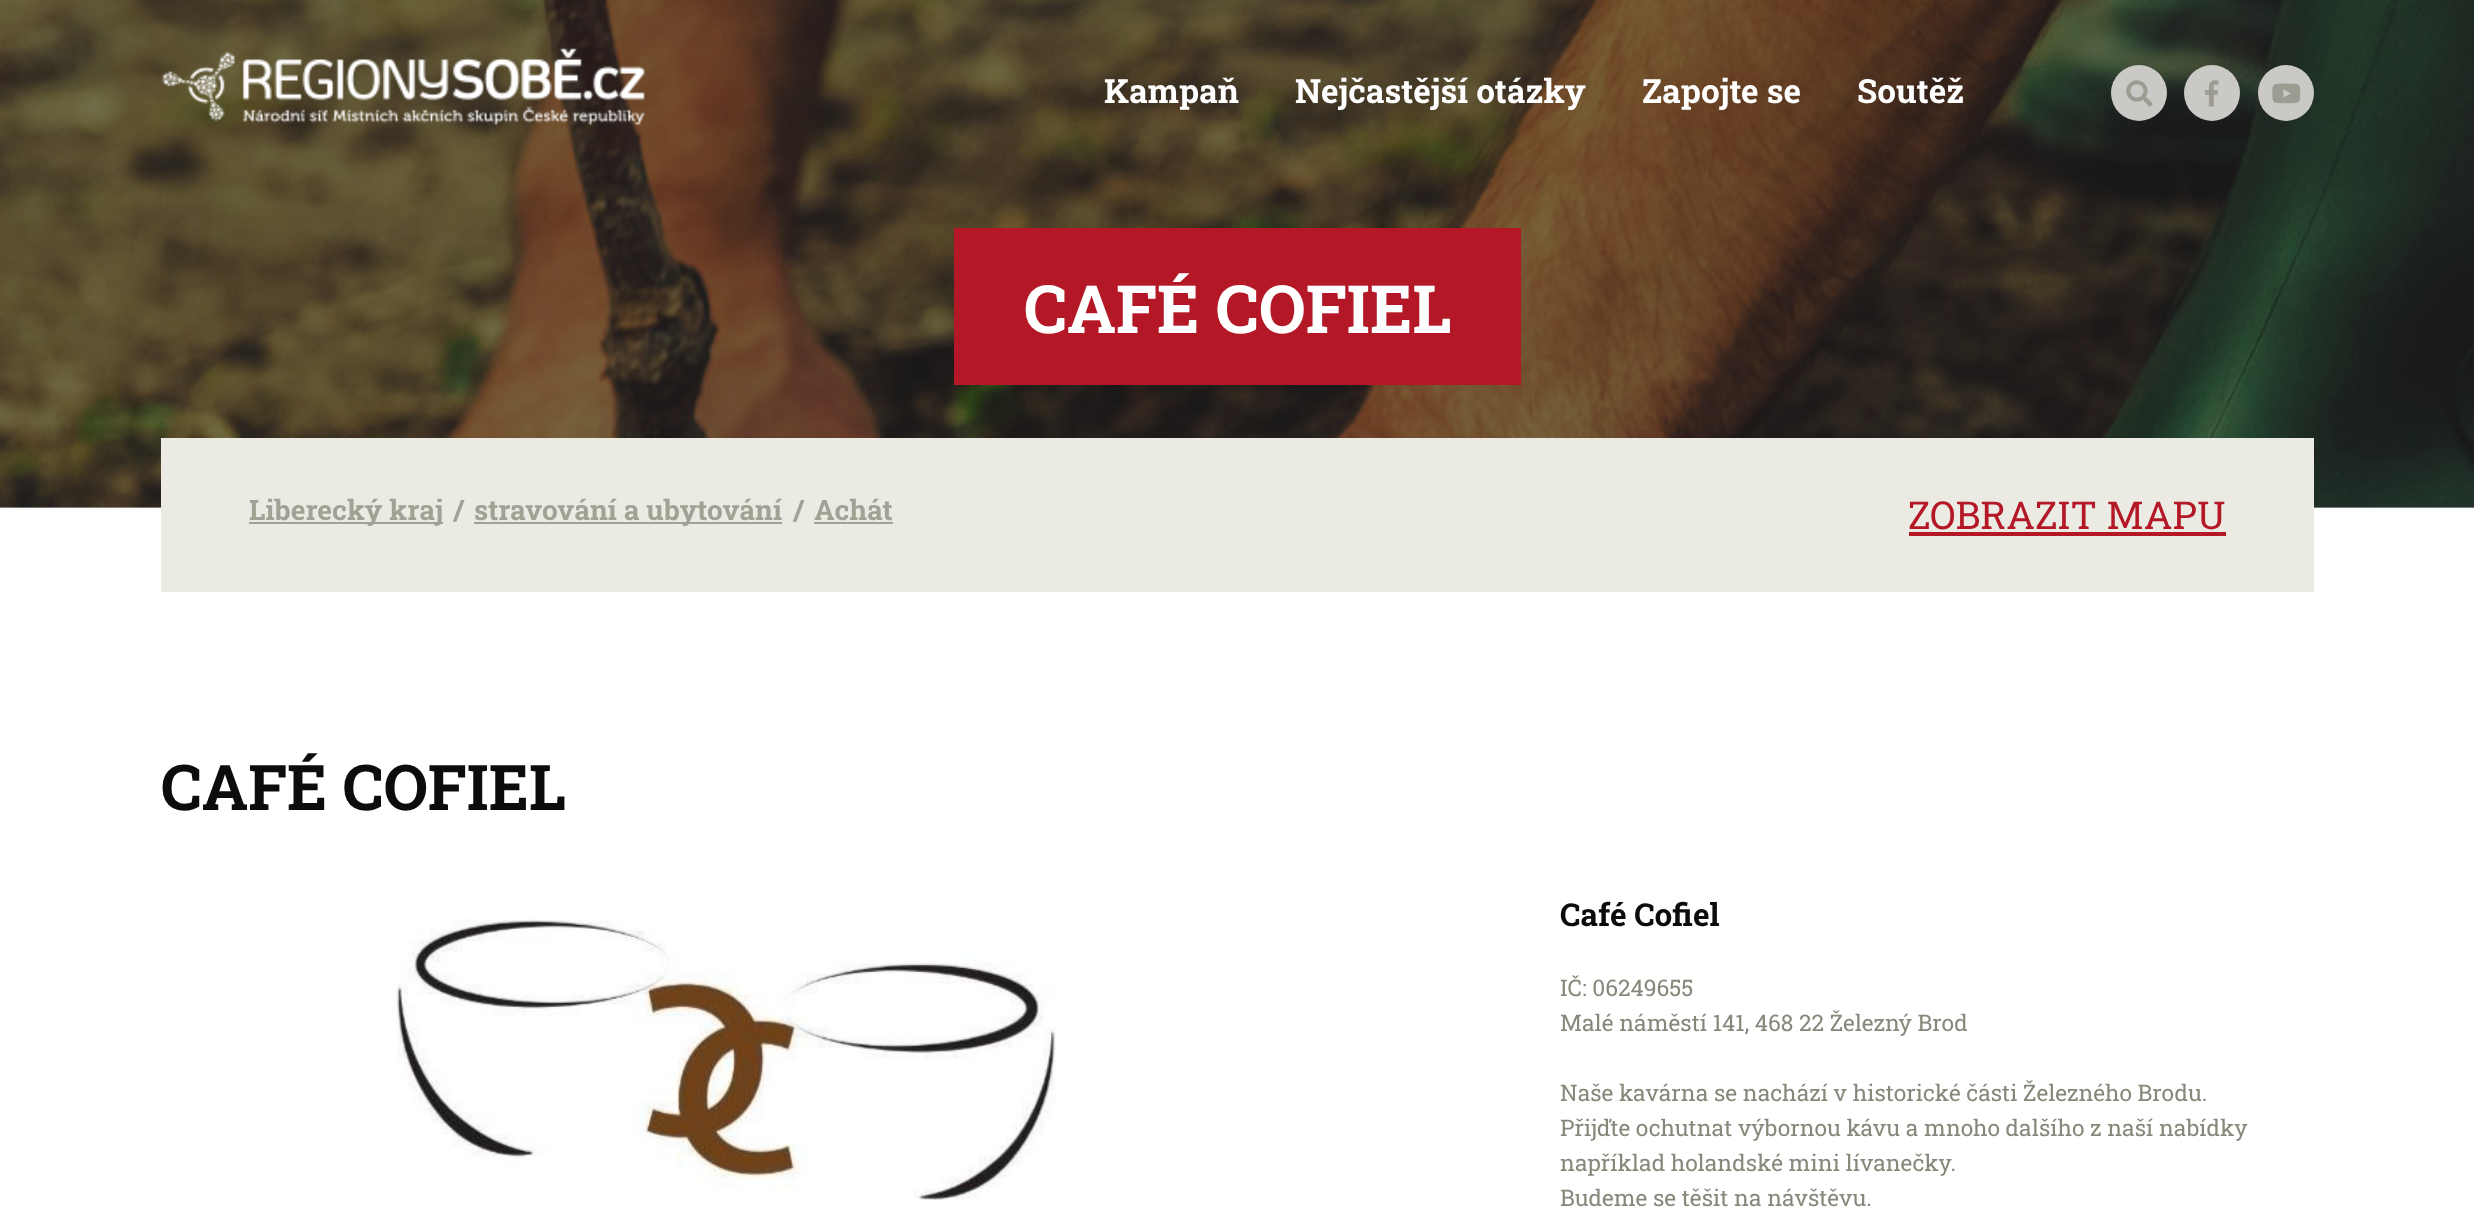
<?xml version="1.0" encoding="UTF-8"?>
<svg xmlns="http://www.w3.org/2000/svg" width="2474" height="1219">
    <rect width="100%" height="100%" fill="#FFFFFF"/>
    <rect x="0" y="507" width="2474" height="1" fill="#CCCCCC"/>
    <image x="0" y="0" width="2474" height="508" href="img_05.png"/>
    <image x="162" y="48" width="483" height="77" href="img_01.png"/>
    <text x="1104" y="103" font-family="Roboto Slab" font-size="33.25" font-weight="700" fill="#FFFFFF">Kampaň</text>
    <text x="1295" y="103" font-family="Roboto Slab" font-size="33.25" font-weight="700" fill="#FFFFFF">Nejčastější otázky</text>
    <text x="1642" y="103" font-family="Roboto Slab" font-size="33.25" font-weight="700" fill="#FFFFFF">Zapojte se</text>
    <text x="1857" y="103" font-family="Roboto Slab" font-size="33.25" font-weight="700" fill="#FFFFFF">Soutěž</text>
    <circle cx="2139" cy="93" r="28" fill="#CBC9C5"/>
    <image x="2126" y="80" width="27" height="27" href="img_02.png"/>
    <circle cx="2212" cy="93" r="28" fill="#CBC9C5"/>
    <image x="2205" y="80" width="14" height="27" href="img_03.png"/>
    <circle cx="2286" cy="93" r="28" fill="#CBC9C5"/>
    <image x="2272" y="83" width="29" height="21" href="img_04.png"/>
    <rect x="954" y="228" width="567" height="157" fill="#B41827"/>
    <text x="1024" y="333" font-family="Roboto Slab" font-size="66.5" font-weight="700" fill="#FFFFFF">CAFÉ COFIEL</text>
    <rect x="161" y="438" width="2153" height="154" fill="#EBEBE4"/>
    <rect x="249" y="522" width="194" height="2" fill="#A1A194"/>
    <text x="249" y="520" font-family="Roboto Slab" font-size="28" font-weight="700" fill="#A1A194">Liberecký kraj</text>
    <text x="453" y="520" font-family="Roboto Slab" font-size="28" font-weight="700" fill="#A1A194">/</text>
    <rect x="474" y="522" width="308" height="2" fill="#A1A194"/>
    <text x="474" y="520" font-family="Roboto Slab" font-size="28" font-weight="700" fill="#A1A194">stravování a ubytování</text>
    <text x="793" y="520" font-family="Roboto Slab" font-size="28" font-weight="700" fill="#A1A194">/</text>
    <text x="814" y="520" font-family="Roboto Slab" font-size="28" font-weight="700" fill="#A1A194">Achát</text>
    <rect x="814" y="522" width="79" height="2" fill="#A1A194"/>
    <text x="1908" y="529" font-family="Roboto Slab" font-size="38.5" fill="#B41827">ZOBRAZIT MAPU</text>
    <rect x="1909" y="532" width="317" height="4" fill="#B41827"/>
    <text x="161" y="810" font-family="Roboto Slab" font-size="63" font-weight="700" fill="#0C0C0C">CAFÉ COFIEL</text>
    <image x="396" y="919" width="660" height="281" href="img_06.png"/>
    <text x="1560" y="926" font-family="Roboto Slab" font-size="31.5" font-weight="700" fill="#0C0C0C">Café Cofiel</text>
    <text font-family="Roboto Slab" font-size="22.75" fill="#87877A">
        <tspan x="1560" y="996">IČ: 06249655</tspan>
        <tspan x="1560" y="1031">Malé náměstí 141, 468 22 Železný Brod</tspan>
    </text>
    <text font-family="Roboto Slab" font-size="22.75" fill="#87877A">
        <tspan x="1560" y="1101">Naše kavárna se nachází v historické části Železného Brodu.</tspan>
        <tspan x="1560" y="1136">Přijďte ochutnat výbornou kávu a mnoho dalšího z naší nabídky</tspan>
        <tspan x="1560" y="1171">například holandské mini lívanečky.</tspan>
        <tspan x="1560" y="1206">Budeme se těšit na návštěvu.</tspan>
    </text>
</svg>
